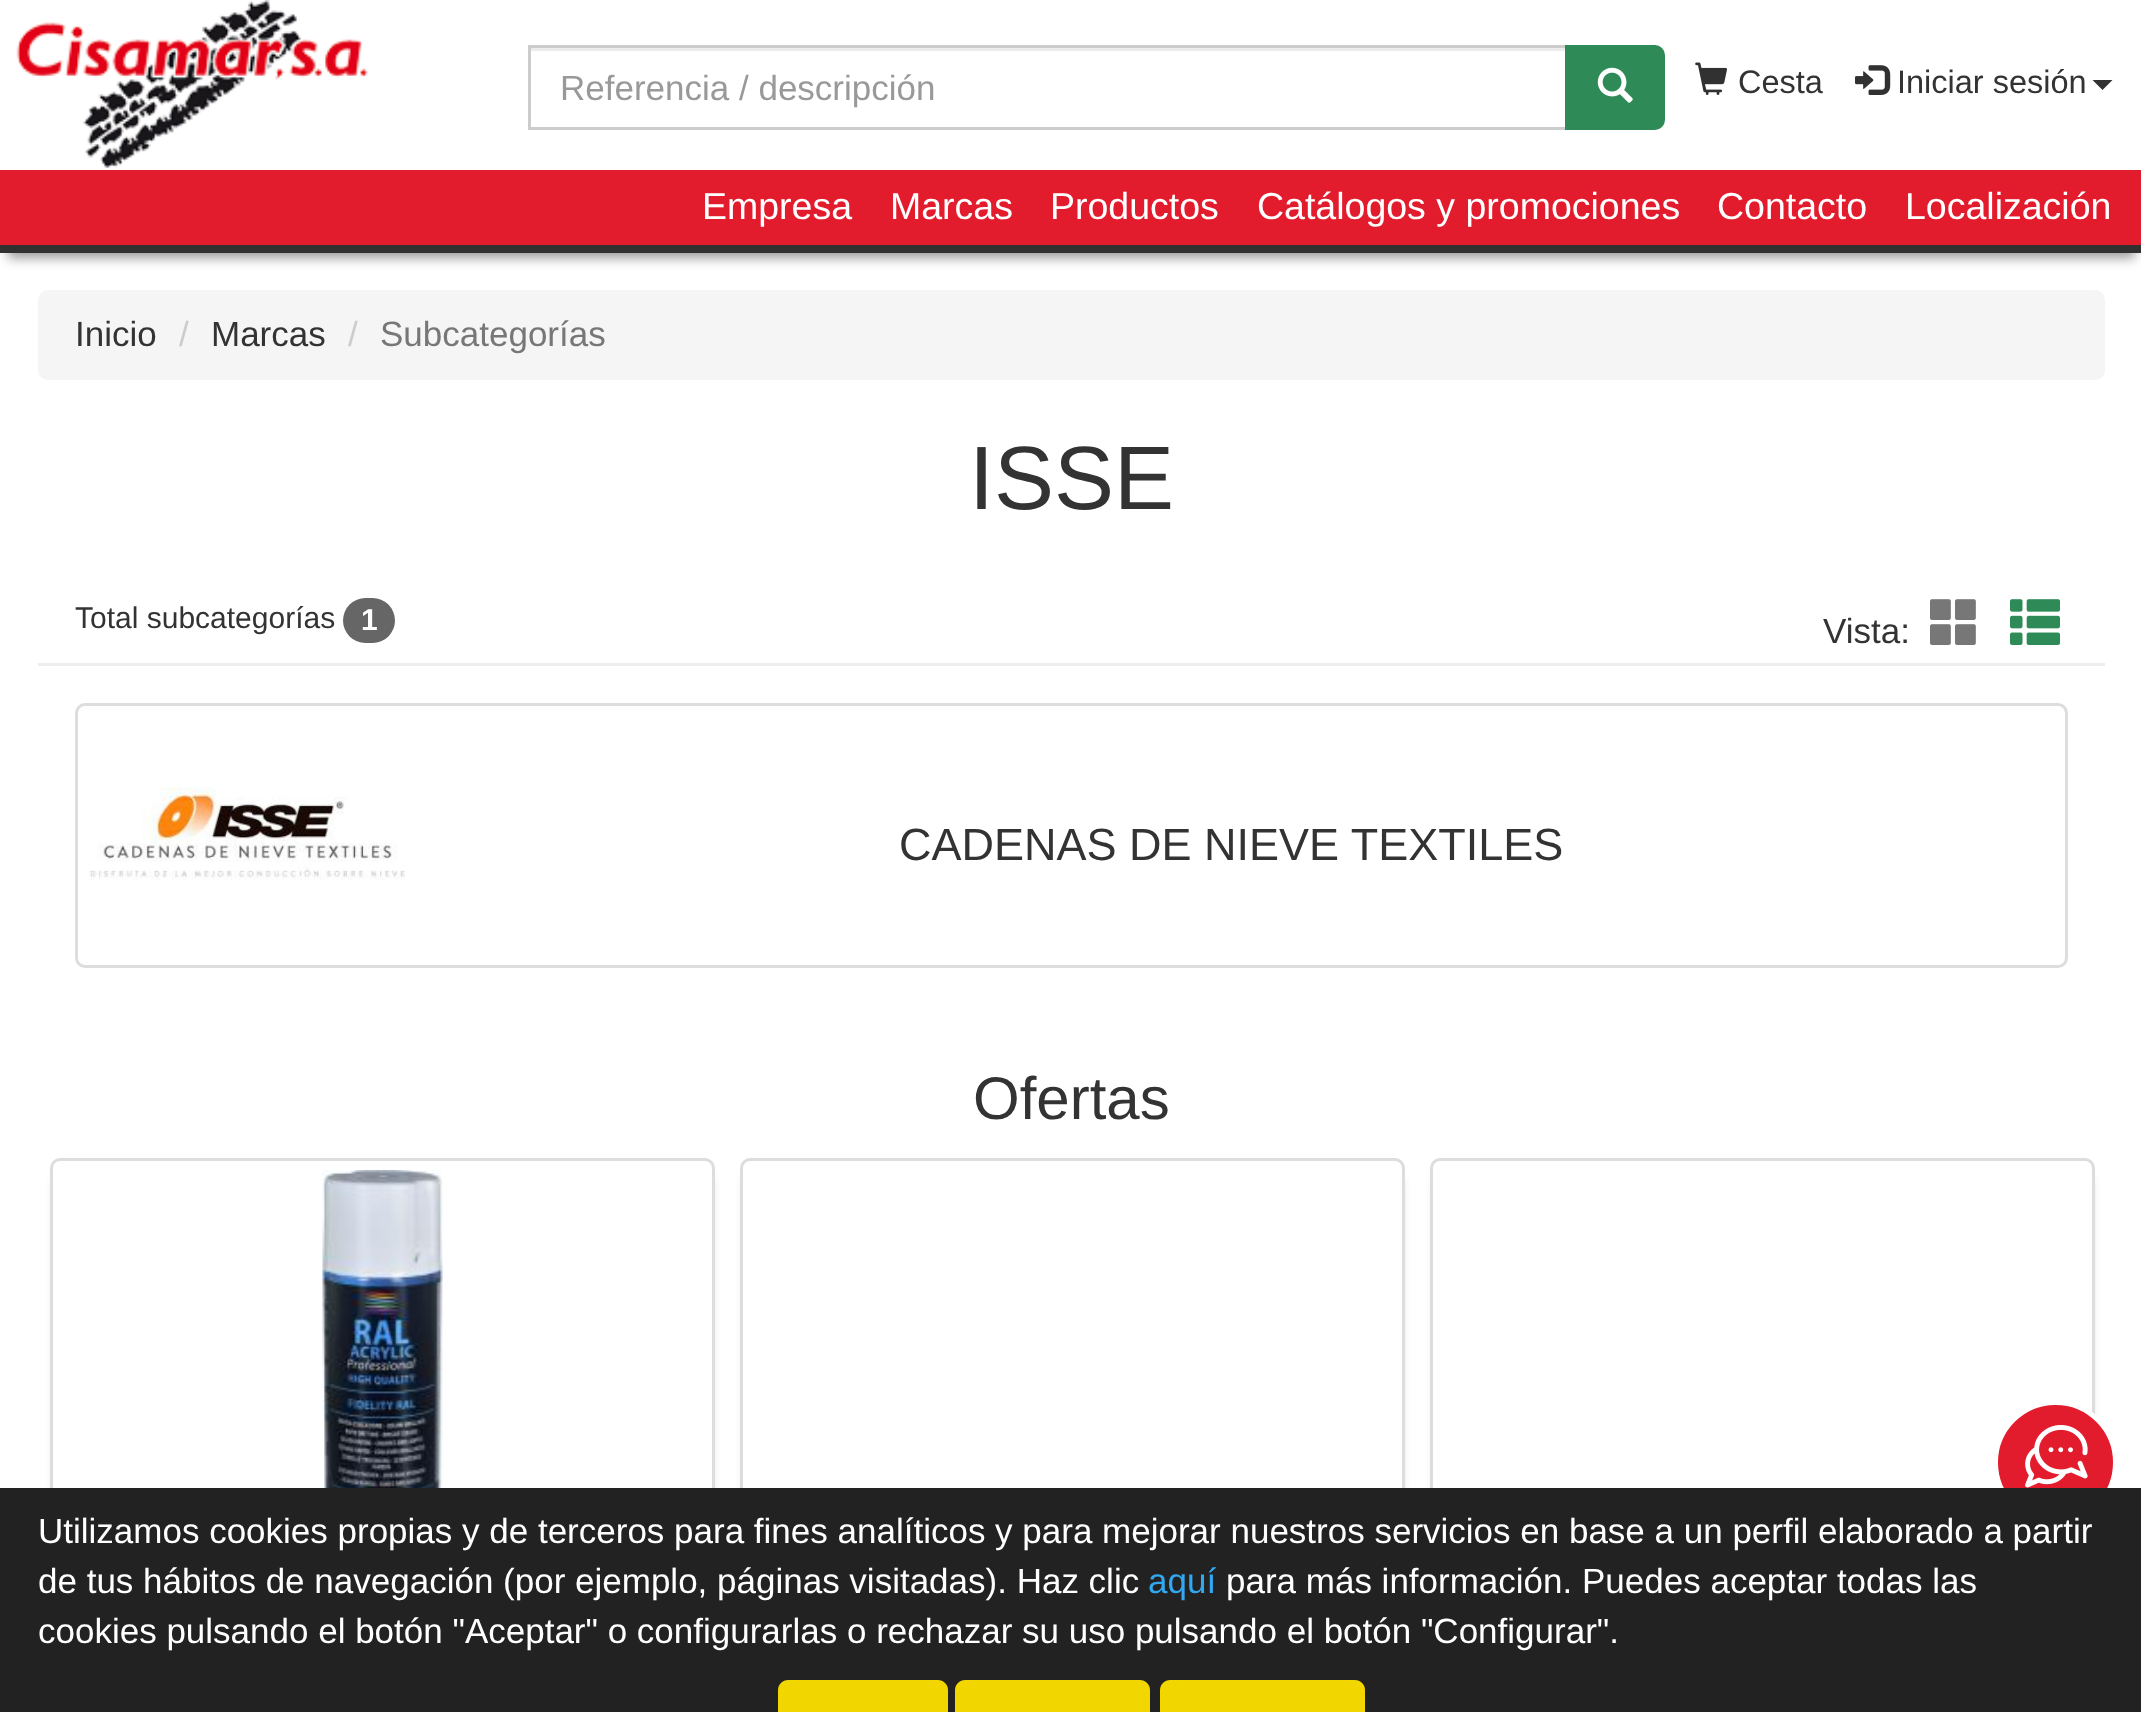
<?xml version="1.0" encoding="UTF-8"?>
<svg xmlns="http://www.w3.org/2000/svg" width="2141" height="1712">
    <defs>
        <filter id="blur1" x="-50%" y="-200%" width="200%" height="500%"><feGaussianBlur stdDeviation="6"/></filter>
        <clipPath id="clip1"><path d="M 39 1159 H 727 V 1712 H 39 Z M 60 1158 H 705 C 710.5 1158 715 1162.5 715 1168 V 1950 C 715 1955.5 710.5 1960 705 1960 H 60 C 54.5 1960 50 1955.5 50 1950 V 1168 C 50 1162.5 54.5 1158 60 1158 Z" clip-rule="evenodd"/></clipPath>
    </defs>
    <rect width="100%" height="100%" fill="#FFFFFF"/>
    <image x="16" y="0" width="352" height="168" href="img_01.png"/>
    <rect x="530" y="48" width="1035" height="3" fill="#ECECEC"/>
    <rect x="529.5" y="46.5" width="1037" height="82" fill="none" stroke="#CCCCCC" stroke-width="3"/>
    <text x="560" y="100" font-family="Liberation Sans" font-size="35" fill="#999999">Referencia / descripción</text>
    <path d="M 1566.5 46.5 H 1655 C 1659.5 46.5 1663.5 50.5 1663.5 55 V 120 C 1663.5 124.5 1659.5 128.5 1655 128.5 H 1566.5 Z" fill="#2E8B57" stroke="#2E8B57" stroke-width="3"/>
    <image x="1597" y="67" width="36" height="36" href="img_02.png"/>
    <image x="1695" y="62" width="32" height="33" href="img_03.png"/>
    <text x="1738" y="93" font-family="Liberation Sans" font-size="32.5" fill="#333333">Cesta</text>
    <image x="1855" y="65" width="36" height="30" href="img_04.png"/>
    <text x="1897" y="93" font-family="Liberation Sans" font-size="32.5" fill="#333333">Iniciar sesión</text>
    <path d="M 2092.5 80 H 2112.5 L 2102.5 90 Z" fill="#313131"/>
    <rect x="8" y="190" width="2127" height="68" fill="#000000" fill-opacity="0.4" filter="url(#blur1)"/>
    <rect x="0" y="170" width="2141" height="75" fill="#E31C2D"/>
    <rect x="0" y="245" width="2141" height="8" fill="#313131"/>
    <text x="702" y="219" font-family="Liberation Sans" font-size="37.5" fill="#FFFFFF">Empresa</text>
    <text x="890" y="219" font-family="Liberation Sans" font-size="37.5" fill="#FFFFFF">Marcas</text>
    <text x="1050" y="219" font-family="Liberation Sans" font-size="37.5" fill="#FFFFFF">Productos</text>
    <text x="1257" y="219" font-family="Liberation Sans" font-size="37.5" fill="#FFFFFF">Catálogos y promociones</text>
    <text x="1717" y="219" font-family="Liberation Sans" font-size="37.5" fill="#FFFFFF">Contacto</text>
    <text x="1905" y="219" font-family="Liberation Sans" font-size="37.5" fill="#FFFFFF">Localización</text>
    <rect x="38" y="290" width="2067" height="90" rx="10" fill="#F5F5F5"/>
    <text x="75" y="346" font-family="Liberation Sans" font-size="35" fill="#333333">Inicio</text>
    <text x="179" y="346" font-family="Liberation Sans" font-size="35" fill="#CCCCCC">/</text>
    <text x="211" y="346" font-family="Liberation Sans" font-size="35" fill="#333333">Marcas</text>
    <text x="348" y="346" font-family="Liberation Sans" font-size="35" fill="#CCCCCC">/</text>
    <text x="380" y="346" font-family="Liberation Sans" font-size="35" fill="#777777">Subcategorías</text>
    <text x="969" y="509" font-family="Liberation Sans" font-size="90" fill="#333333">ISSE</text>
    <rect x="38" y="663" width="2067" height="3" fill="#EEEEEE"/>
    <text x="75" y="628" font-family="Liberation Sans" font-size="30" fill="#333333">Total subcategorías</text>
    <rect x="343" y="598" width="52" height="45" rx="22.5" fill="#666666"/>
    <text x="361" y="630" font-family="Liberation Sans" font-size="30" font-weight="700" fill="#FFFFFF">1</text>
    <text x="1823" y="643" font-family="Liberation Sans" font-size="35" fill="#333333">Vista:</text>
    <image x="1930" y="599" width="46" height="46" href="img_05.png"/>
    <image x="2010" y="599" width="50" height="46" href="img_06.png"/>
    <rect x="76.5" y="704.5" width="1990" height="262" rx="8.5" fill="none" stroke="#DDDDDD" stroke-width="3"/>
    <image x="89" y="787" width="316" height="93" href="img_07.png"/>
    <text x="899" y="860" font-family="Liberation Sans" font-size="45" fill="#333333">CADENAS DE NIEVE TEXTILES</text>
    <text x="973" y="1119" font-family="Liberation Sans" font-size="60" fill="#333333">Ofertas</text>
    <g clip-path="url(#clip1)">
        <rect x="58" y="1178" width="650" height="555" rx="2.5" fill="#000000" fill-opacity="0.4" filter="url(#blur1)"/>
    </g>
    <rect x="51.5" y="1159.5" width="662" height="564" rx="8.5" fill="none" stroke="#DDDDDD" stroke-width="3"/>
    <image x="322" y="1170" width="121" height="318" href="img_08.png"/>
    <rect x="748" y="1178" width="650" height="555" rx="2.5" fill="#000000" fill-opacity="0.4" filter="url(#blur1)"/>
    <rect x="741.5" y="1159.5" width="662" height="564" rx="8.5" fill="#FFFFFF" stroke="#DDDDDD" stroke-width="3"/>
    <rect x="1438" y="1178" width="650" height="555" rx="2.5" fill="#000000" fill-opacity="0.4" filter="url(#blur1)"/>
    <rect x="1431.5" y="1159.5" width="662" height="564" rx="8.5" fill="#FFFFFF" stroke="#DDDDDD" stroke-width="3"/>
    <circle cx="2055.5" cy="1462.5" r="60" fill="#E31C2D" stroke="#FFFFFF" stroke-width="5"/>
    <image x="2025" y="1425" width="63" height="63" href="img_09.png"/>
    <rect x="0" y="1488" width="2141" height="224" fill="#222222"/>
    <text font-family="Liberation Sans" font-size="35" fill="#FFFFFF">
        <tspan x="38" y="1543">Utilizamos cookies propias y de terceros para fines analíticos y para mejorar nuestros servicios en base a un perfil elaborado a partir</tspan>
        <tspan x="38" y="1593">de tus hábitos de navegación (por ejemplo, páginas visitadas). Haz clic</tspan>
    </text>
    <text x="1148" y="1593" font-family="Liberation Sans" font-size="35" fill="#31A8F0">aquí</text>
    <text x="1226" y="1593" font-family="Liberation Sans" font-size="35" fill="#FFFFFF">para más información. Puedes aceptar todas las</text>
    <text x="38" y="1643" font-family="Liberation Sans" font-size="35" fill="#FFFFFF">cookies pulsando el botón "Aceptar" o configurarlas o rechazar su uso pulsando el botón "Configurar".</text>
    <path d="M 788 1680 H 938 C 943.5 1680 948 1684.5 948 1690 V 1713 H 778 V 1690 C 778 1684.5 782.5 1680 788 1680 Z" fill="#F1D600"/>
    <path d="M 965 1680 H 1140 C 1145.5 1680 1150 1684.5 1150 1690 V 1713 H 955 V 1690 C 955 1684.5 959.5 1680 965 1680 Z" fill="#F1D600"/>
    <path d="M 1170 1680 H 1355 C 1360.5 1680 1365 1684.5 1365 1690 V 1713 H 1160 V 1690 C 1160 1684.5 1164.5 1680 1170 1680 Z" fill="#F1D600"/>
</svg>
